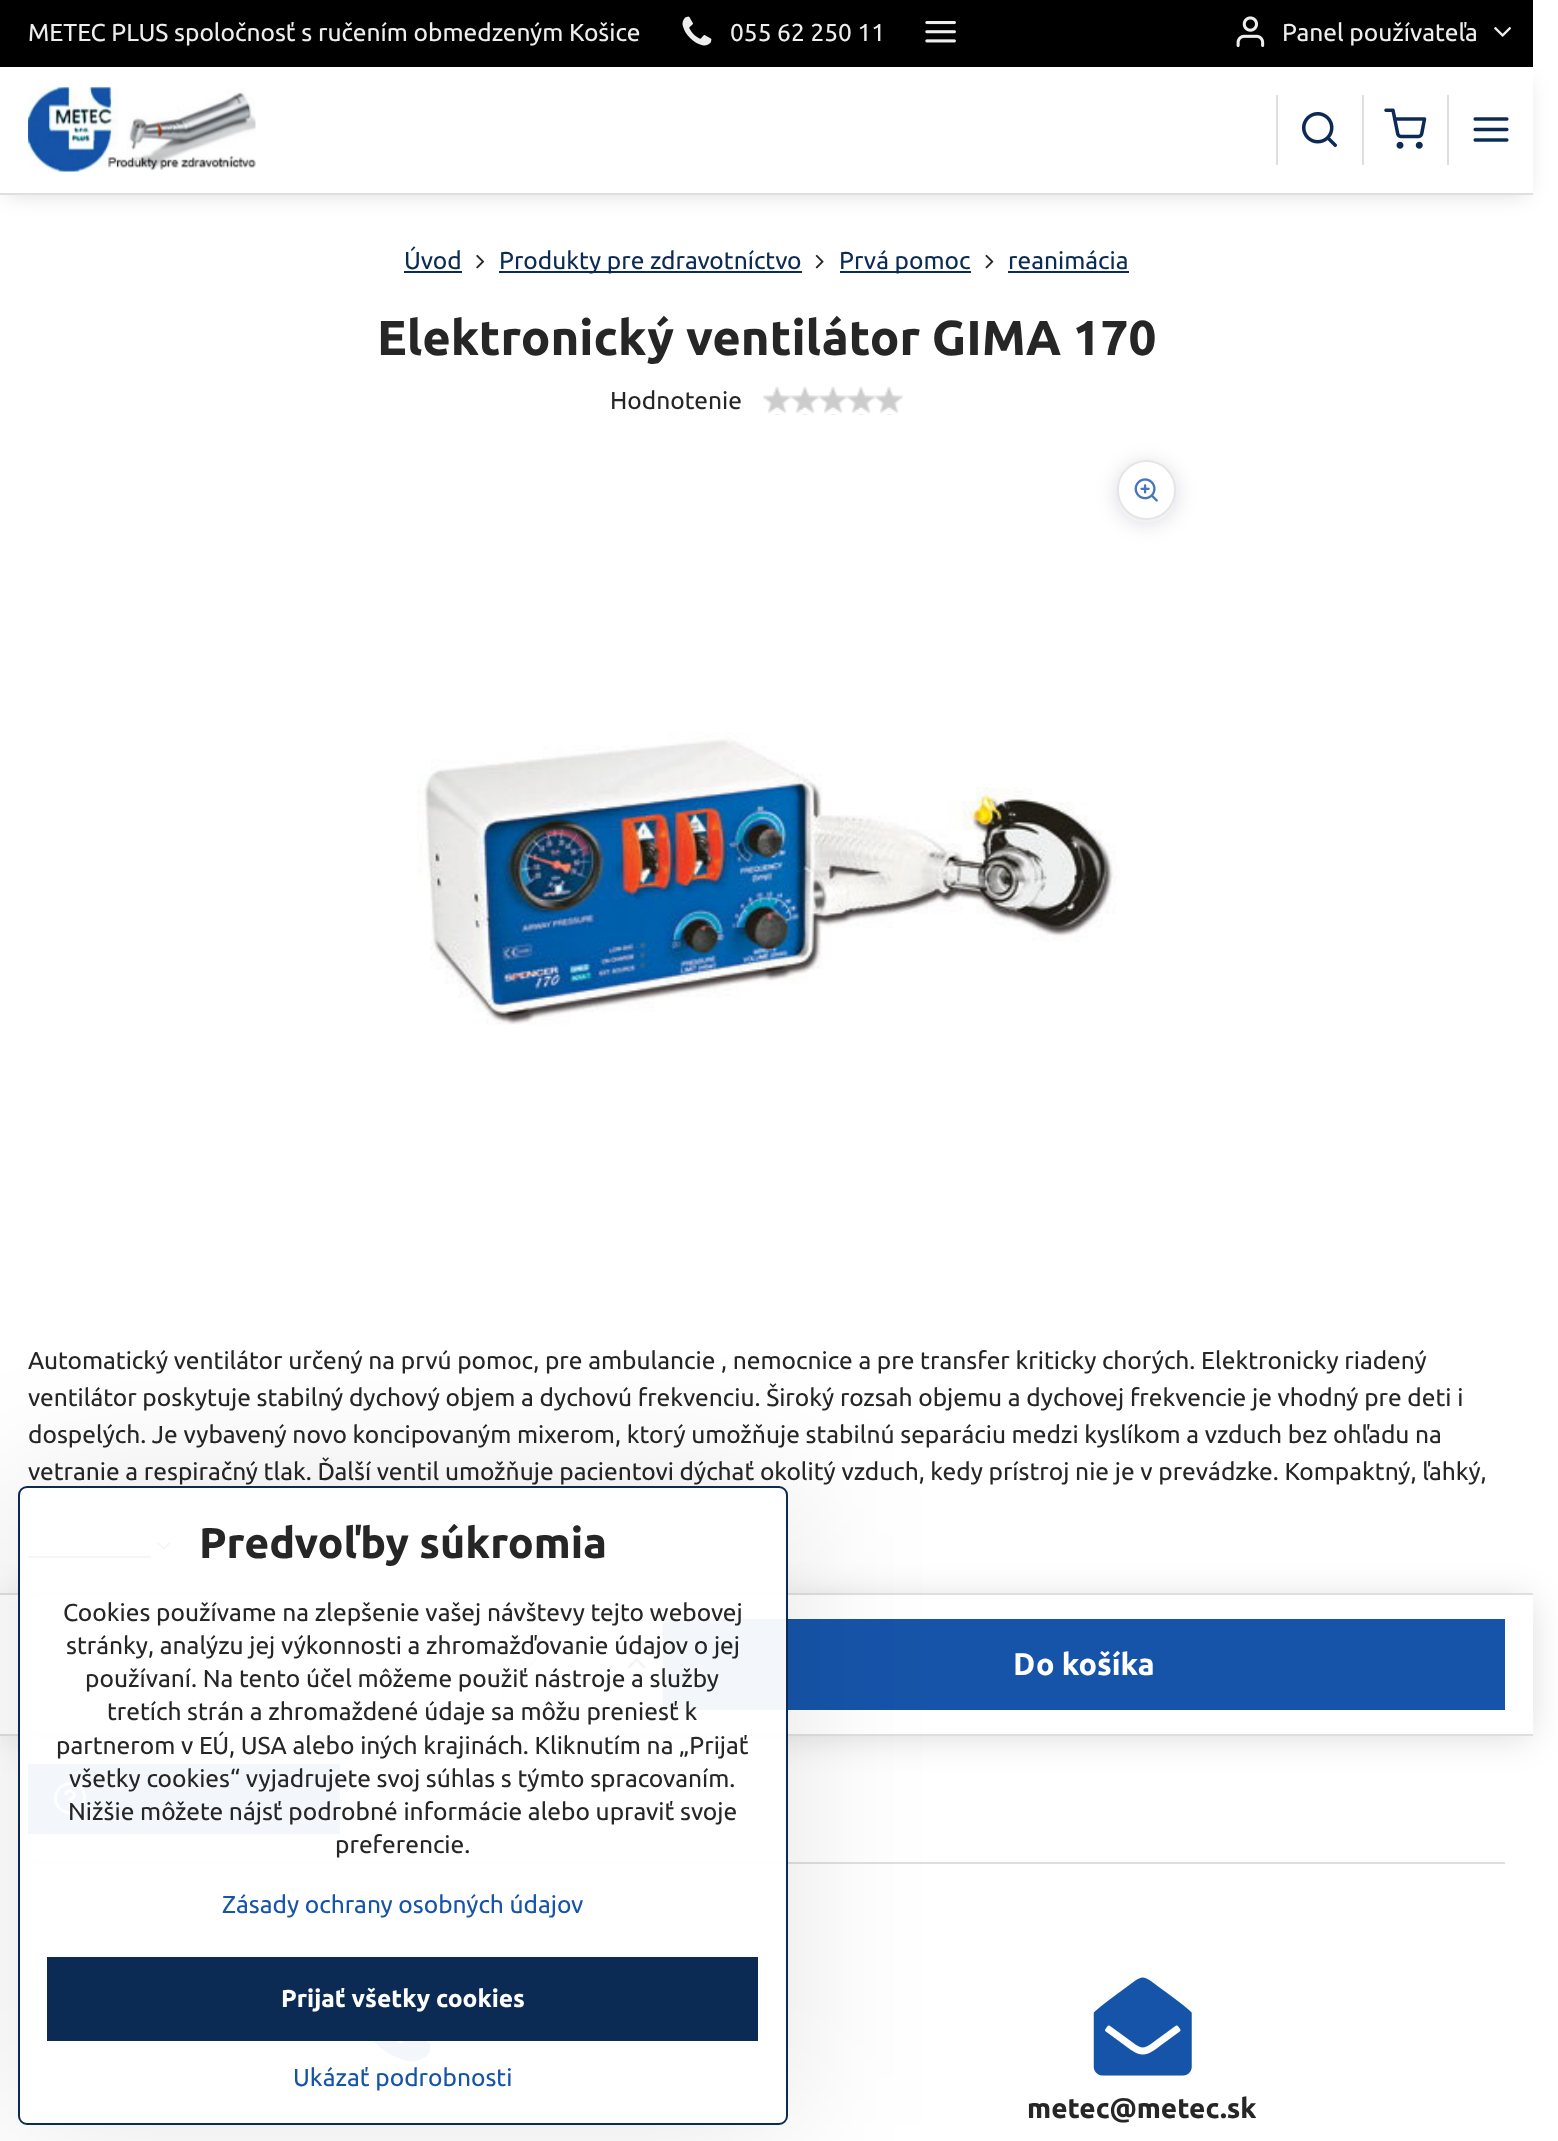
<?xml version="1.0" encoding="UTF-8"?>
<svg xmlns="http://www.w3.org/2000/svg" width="1558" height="2141">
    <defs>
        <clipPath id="clip1"><path d="M 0 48 H 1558 V 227 H 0 Z M 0 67 H 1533 V 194 H 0 Z" clip-rule="evenodd"/></clipPath>
        <filter id="blur1" x="-50%" y="-200%" width="200%" height="500%"><feGaussianBlur stdDeviation="10.5"/></filter>
        <clipPath id="clip2"><path d="M 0 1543 H 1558 V 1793 H 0 Z M 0 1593 H 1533 V 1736 H 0 Z" clip-rule="evenodd"/></clipPath>
        <filter id="blur2" x="-50%" y="-200%" width="200%" height="500%"><feGaussianBlur stdDeviation="18.5"/></filter>
        <clipPath id="clip3"><path d="M 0 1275 H 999 V 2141 H 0 Z M 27 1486 H 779 C 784 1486 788 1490 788 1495 V 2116 C 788 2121 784 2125 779 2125 H 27 C 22 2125 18 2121 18 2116 V 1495 C 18 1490 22 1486 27 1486 Z" clip-rule="evenodd"/></clipPath>
        <filter id="blur3" x="-50%" y="-200%" width="200%" height="500%"><feGaussianBlur stdDeviation="70"/></filter>
    </defs>
    <rect width="100%" height="100%" fill="#FFFFFF"/>
    <rect x="0" y="0" width="1533" height="67" fill="#000000"/>
    <text x="28" y="41" font-family="Ubuntu" font-size="24.5" fill="#EEEEEE">METEC PLUS spoločnosť s ručením obmedzeným Košice</text>
    <image x="682" y="16" width="30" height="30" href="img_01.png"/>
    <text x="730" y="41" font-family="Ubuntu" font-size="24.5" fill="#EEEEEE">055 62 250 11</text>
    <image x="925" y="21" width="31" height="22" href="img_02.png"/>
    <image x="1236" y="16" width="29" height="31" href="img_03.png"/>
    <text x="1282" y="41" font-family="Ubuntu" font-size="24.5" fill="#EEEEEE">Panel používateľa</text>
    <image x="1494" y="27" width="18" height="10" href="img_04.png"/>
    <g clip-path="url(#clip1)">
        <rect x="7" y="81" width="1519" height="113" fill="#000014" fill-opacity="0.15" filter="url(#blur1)"/>
    </g>
    <rect x="0" y="193" width="1533" height="2" fill="#DFDFDF"/>
    <image x="28" y="86" width="228" height="86" href="img_05.png"/>
    <rect x="1276" y="95" width="2" height="70" fill="#DFDFDF"/>
    <image x="1302" y="112" width="35" height="35" href="img_06.png"/>
    <rect x="1362" y="95" width="2" height="70" fill="#DFDFDF"/>
    <image x="1384" y="108" width="43" height="41" href="img_07.png"/>
    <rect x="1447" y="95" width="2" height="70" fill="#DFDFDF"/>
    <image x="1473" y="117" width="36" height="25" href="img_08.png"/>
    <text x="404" y="269" font-family="Ubuntu" font-size="24.5" fill="#0B2A54">Úvod</text>
    <rect x="404" y="271" width="58" height="2" fill="#0B2A54"/>
    <image x="476" y="254" width="9" height="15" href="img_09.png"/>
    <rect x="499" y="271" width="303" height="2" fill="#0B2A54"/>
    <text x="499" y="269" font-family="Ubuntu" font-size="24.5" fill="#0B2A54">Produkty pre zdravotníctvo</text>
    <image x="815" y="254" width="9" height="15" href="img_10.png"/>
    <rect x="840" y="271" width="131" height="2" fill="#0B2A54"/>
    <text x="839" y="269" font-family="Ubuntu" font-size="24.5" fill="#0B2A54">Prvá pomoc</text>
    <image x="985" y="254" width="9" height="15" href="img_11.png"/>
    <text x="1008" y="269" font-family="Ubuntu" font-size="24.5" fill="#0B2A54">reanimácia</text>
    <rect x="1008" y="271" width="121" height="2" fill="#0B2A54"/>
    <text x="377" y="355" font-family="Ubuntu" font-size="49" font-weight="700" fill="#262626">Elektronický ventilátor GIMA 170</text>
    <text x="610" y="409" font-family="Ubuntu" font-size="24.5" fill="#262626">Hodnotenie</text>
    <image x="763" y="386" width="140" height="29" href="img_12.png"/>
    <text font-family="Ubuntu" font-size="24.5" fill="#262626">
        <tspan x="28" y="1369">Automatický ventilátor určený na prvú pomoc, pre ambulancie , nemocnice a pre transfer kriticky chorých. Elektronicky riadený</tspan>
        <tspan x="28" y="1406">ventilátor poskytuje stabilný dychový objem a dychovú frekvenciu. Široký rozsah objemu a dychovej frekvencie je vhodný pre deti i</tspan>
        <tspan x="28" y="1443">dospelých. Je vybavený novo koncipovaným mixerom, ktorý umožňuje stabilnú separáciu medzi kyslíkom a vzduch bez ohľadu na</tspan>
        <tspan x="28" y="1480">vetranie a respiračný tlak. Ďalší ventil umožňuje pacientovi dýchať okolitý vzduch, kedy prístroj nie je v prevádzke. Kompaktný, ľahký,</tspan>
    </text>
    <image x="156" y="1542" width="15" height="8" href="img_13.png"/>
    <rect x="28" y="1556" width="123" height="2" fill="#1654A9"/>
    <rect x="28" y="1764" width="312" height="70" fill="#1654A9"/>
    <image x="54" y="1782" width="32" height="33" href="img_16.png"/>
    <g clip-path="url(#clip2)">
        <rect x="4" y="1600" width="1526" height="136" fill="#000014" fill-opacity="0.15" filter="url(#blur2)"/>
    </g>
    <rect x="0" y="1593" width="1533" height="2" fill="#DFDFDF"/>
    <rect x="0" y="1734" width="1533" height="2" fill="#DFDFDF"/>
    <rect x="503" y="1620" width="159" height="89" fill="none" stroke="#DFDFDF" stroke-width="2"/>
    <image x="519" y="1658" width="18" height="11" href="img_14.png"/>
    <image x="627" y="1658" width="19" height="11" href="img_15.png"/>
    <rect x="663" y="1619" width="842" height="91" fill="#1654A9"/>
    <text x="1013" y="1675" font-family="Noto Sans" font-size="30.5" font-weight="700" fill="#FFFFFF">D</text>
    <text x="1036" y="1675" font-family="Ubuntu" font-size="30.5" font-weight="700" fill="#FFFFFF">o košíka</text>
    <rect x="28" y="1862" width="1477" height="2" fill="#DFDFDF"/>
    <image x="373" y="2041" width="58" height="21" href="img_17.png"/>
    <image x="1093" y="1977" width="99" height="99" href="img_18.png"/>
    <text x="1027" y="2118" font-family="Ubuntu" font-size="28" font-weight="700" fill="#262626">metec@metec.sk</text>
    <rect x="1117" y="464" width="59" height="59" rx="29.5" fill="#333343" fill-opacity="0.15" filter="url(#blur1)"/>
    <rect x="1118" y="461" width="57" height="58" rx="28.5" fill="#FFFFFF" stroke="#E5E5E5" stroke-width="2"/>
    <image x="1134" y="478" width="24" height="24" href="img_19.png"/>
    <image x="417" y="732" width="700" height="293" href="img_20.png"/>
    <g clip-path="url(#clip3)">
        <rect x="18" y="1486" width="770" height="639" rx="9" fill="#000000" fill-opacity="0.1" filter="url(#blur3)"/>
    </g>
    <rect x="19" y="1487" width="768" height="637" rx="8" fill="#FFFFFF" fill-opacity="0.95" stroke="#0B2A54" stroke-width="2"/>
    <text x="199" y="1558" font-family="Ubuntu" font-size="42.9" font-weight="700" fill="#262626">Predvoľby súkromia</text>
    <text x="63" y="1621" font-family="Ubuntu" font-size="24.5" fill="#262626">Cookies používame na zlepšenie vašej návštevy tejto webovej</text>
    <text x="66" y="1654" font-family="Ubuntu" font-size="24.5" fill="#262626">stránky, analýzu jej výkonnosti a zhromažďovanie údajov o jej</text>
    <text x="85" y="1687" font-family="Ubuntu" font-size="24.5" fill="#262626">používaní. Na tento účel môžeme použiť nástroje a služby</text>
    <text x="107" y="1720" font-family="Ubuntu" font-size="24.5" fill="#262626">tretích strán a zhromaždené údaje sa môžu preniesť k</text>
    <text x="56" y="1754" font-family="Ubuntu" font-size="24.5" fill="#262626">partnerom v EÚ, USA alebo iných krajinách. Kliknutím na „Prijať</text>
    <text x="69" y="1787" font-family="Ubuntu" font-size="24.5" fill="#262626">všetky cookies“ vyjadrujete svoj súhlas s týmto spracovaním.</text>
    <text x="68" y="1820" font-family="Ubuntu" font-size="24.5" fill="#262626">Nižšie môžete nájsť podrobné informácie alebo upraviť svoje</text>
    <text x="335" y="1853" font-family="Ubuntu" font-size="24.5" fill="#262626">preferencie.</text>
    <text x="222" y="1913" font-family="Ubuntu" font-size="24.5" fill="#1654A9">Zásady ochrany osobných údajov</text>
    <rect x="47" y="1957" width="711" height="84" fill="#0B2A54"/>
    <text x="281" y="2007" font-family="Ubuntu" font-size="24.5" font-weight="700" fill="#FFFFFF">Prijať všetky cookies</text>
    <text x="293" y="2086" font-family="Ubuntu" font-size="24.5" fill="#1654A9">Ukázať podrobnosti</text>
</svg>
